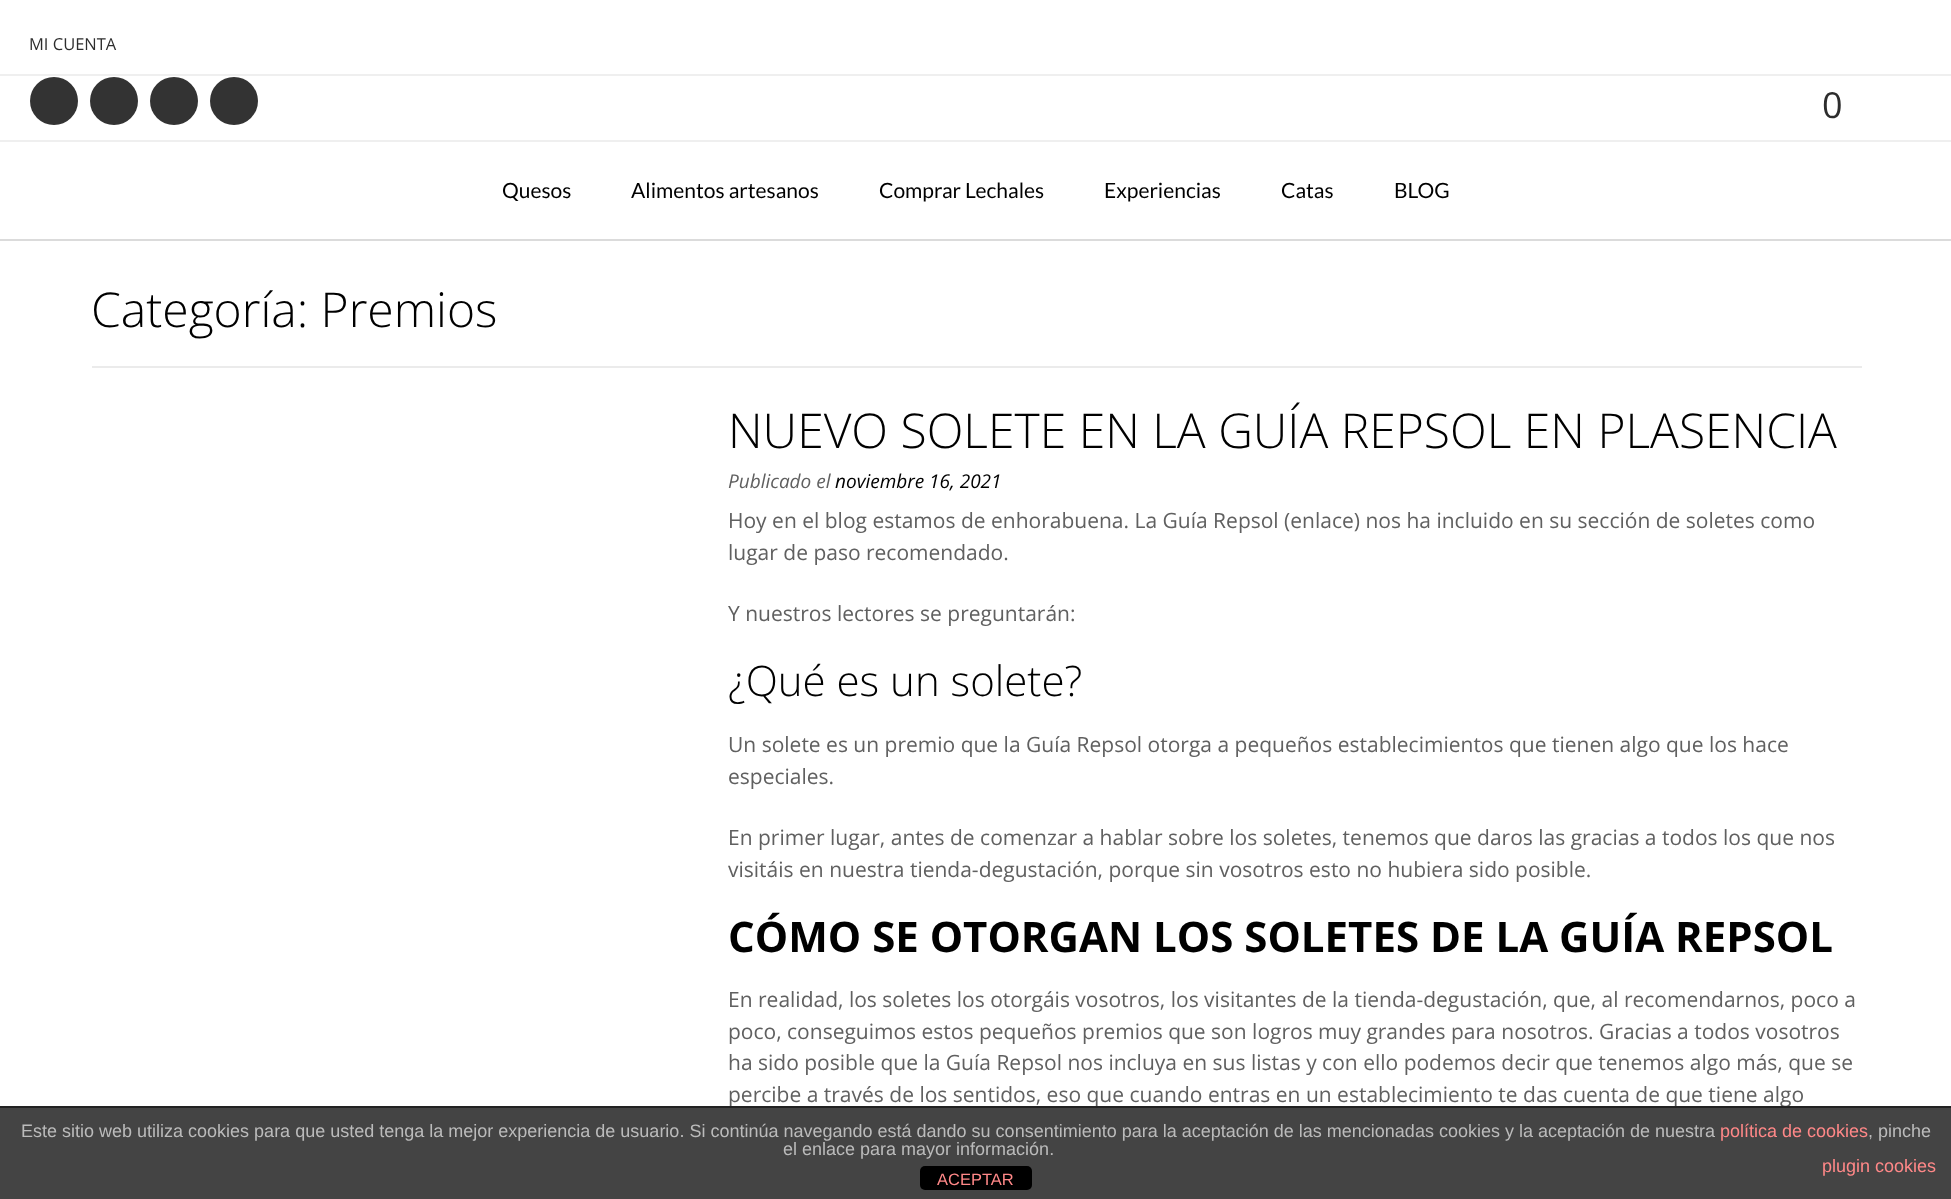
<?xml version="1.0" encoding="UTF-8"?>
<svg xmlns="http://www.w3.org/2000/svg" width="1951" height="1199">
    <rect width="100%" height="100%" fill="#FFFFFF"/>
    <rect x="0" y="239" width="1951" height="2" fill="#DBDBDB"/>
    <rect x="0" y="74" width="1951" height="2" fill="#EFEFEF"/>
    <text x="29" y="50" font-family="Open Sans" font-size="16.5" fill="#2D2D2D">MI CUENTA</text>
    <circle cx="54" cy="101" r="24" fill="#333333"/>
    <circle cx="114" cy="101" r="24" fill="#333333"/>
    <circle cx="174" cy="101" r="24" fill="#333333"/>
    <circle cx="234" cy="101" r="24" fill="#333333"/>
    <text x="1822" y="118" font-family="Open Sans" font-size="36" fill="#2D2D2D">0</text>
    <rect x="0" y="140" width="1951" height="2" fill="#EFEFEF"/>
    <text x="502" y="198" font-family="Lato" font-size="21" fill="#000000">Quesos</text>
    <text x="631" y="198" font-family="Lato" font-size="21" fill="#000000">Alimentos artesanos</text>
    <text x="879" y="198" font-family="Lato" font-size="21" fill="#000000">Comprar Lechales</text>
    <text x="1104" y="198" font-family="Lato" font-size="21" fill="#000000">Experiencias</text>
    <text x="1281" y="198" font-family="Lato" font-size="21" fill="#000000">Catas</text>
    <text x="1394" y="198" font-family="Lato" font-size="21" fill="#000000">BLOG</text>
    <rect x="92" y="366" width="1770" height="2" fill="#EBEBEB"/>
    <text x="91" y="327" font-family="Open Sans" font-size="48" font-weight="300" fill="#000000">Categoría: Premios</text>
    <text x="728" y="448" font-family="Open Sans" font-size="48" font-weight="300" fill="#000000">NUEVO SOLETE EN LA GUÍA REPSOL EN PLASENCIA</text>
    <text x="728" y="488" font-family="Open Sans" font-size="19" font-style="italic" fill="#606060">Publicado el</text>
    <text x="835" y="488" font-family="Open Sans" font-size="19" font-style="italic" fill="#000000">noviembre 16, 2021</text>
    <text font-family="Open Sans" font-size="21" fill="#606060">
        <tspan x="728" y="528">Hoy en el blog estamos de enhorabuena. La Guía Repsol (enlace) nos ha incluido en su sección de soletes como</tspan>
        <tspan x="728" y="560">lugar de paso recomendado.</tspan>
    </text>
    <text x="728" y="621" font-family="Open Sans" font-size="21" fill="#606060">Y nuestros lectores se preguntarán:</text>
    <text x="728" y="696" font-family="Open Sans" font-size="42" font-weight="300" fill="#000000">¿Qué es un solete?</text>
    <text font-family="Open Sans" font-size="21" fill="#606060">
        <tspan x="728" y="752">Un solete es un premio que la Guía Repsol otorga a pequeños establecimientos que tienen algo que los hace</tspan>
        <tspan x="728" y="784">especiales.</tspan>
    </text>
    <text font-family="Open Sans" font-size="21" fill="#606060">
        <tspan x="728" y="845">En primer lugar, antes de comenzar a hablar sobre los soletes, tenemos que daros las gracias a todos los que nos</tspan>
        <tspan x="728" y="877">visitáis en nuestra tienda-degustación, porque sin vosotros esto no hubiera sido posible.</tspan>
    </text>
    <text x="728" y="952" font-family="Open Sans" font-size="42" font-weight="700" fill="#000000">CÓMO SE OTORGAN LOS SOLETES DE LA GUÍA REPSOL</text>
    <text font-family="Open Sans" font-size="21" fill="#606060">
        <tspan x="728" y="1007">En realidad, los soletes los otorgáis vosotros, los visitantes de la tienda-degustación, que, al recomendarnos, poco a</tspan>
        <tspan x="728" y="1039">poco, conseguimos estos pequeños premios que son logros muy grandes para nosotros. Gracias a todos vosotros</tspan>
        <tspan x="728" y="1070">ha sido posible que la Guía Repsol nos incluya en sus listas y con ello podemos decir que tenemos algo más, que se</tspan>
        <tspan x="728" y="1102">percibe a través de los sentidos, eso que cuando entras en un establecimiento te das cuenta de que tiene algo</tspan>
    </text>
    <rect x="0" y="1108" width="1951" height="91" fill="#444444"/>
    <rect x="0" y="1106" width="1951" height="2" fill="#222222"/>
    <text x="21" y="1137" font-family="Liberation Sans" font-size="18" fill="#BBBBBB">Este sitio web utiliza cookies para que usted tenga la mejor experiencia de usuario. Si continúa navegando está dando su consentimiento para la aceptación de las mencionadas cookies y la aceptación de nuestra</text>
    <text x="1720" y="1137" font-family="Liberation Sans" font-size="18" fill="#FF8888">política de cookies</text>
    <text x="1868" y="1137" font-family="Liberation Sans" font-size="18" fill="#BBBBBB">, pinche</text>
    <text x="783" y="1155" font-family="Liberation Sans" font-size="18" fill="#BBBBBB">el enlace para mayor información.</text>
    <text x="1822" y="1172" font-family="Liberation Sans" font-size="18" fill="#FF8888">plugin cookies</text>
    <rect x="920" y="1166" width="112" height="24" rx="5" fill="#000000"/>
    <text x="937" y="1185" font-family="Liberation Sans" font-size="16.5" fill="#FF8888">ACEPTAR</text>
</svg>
